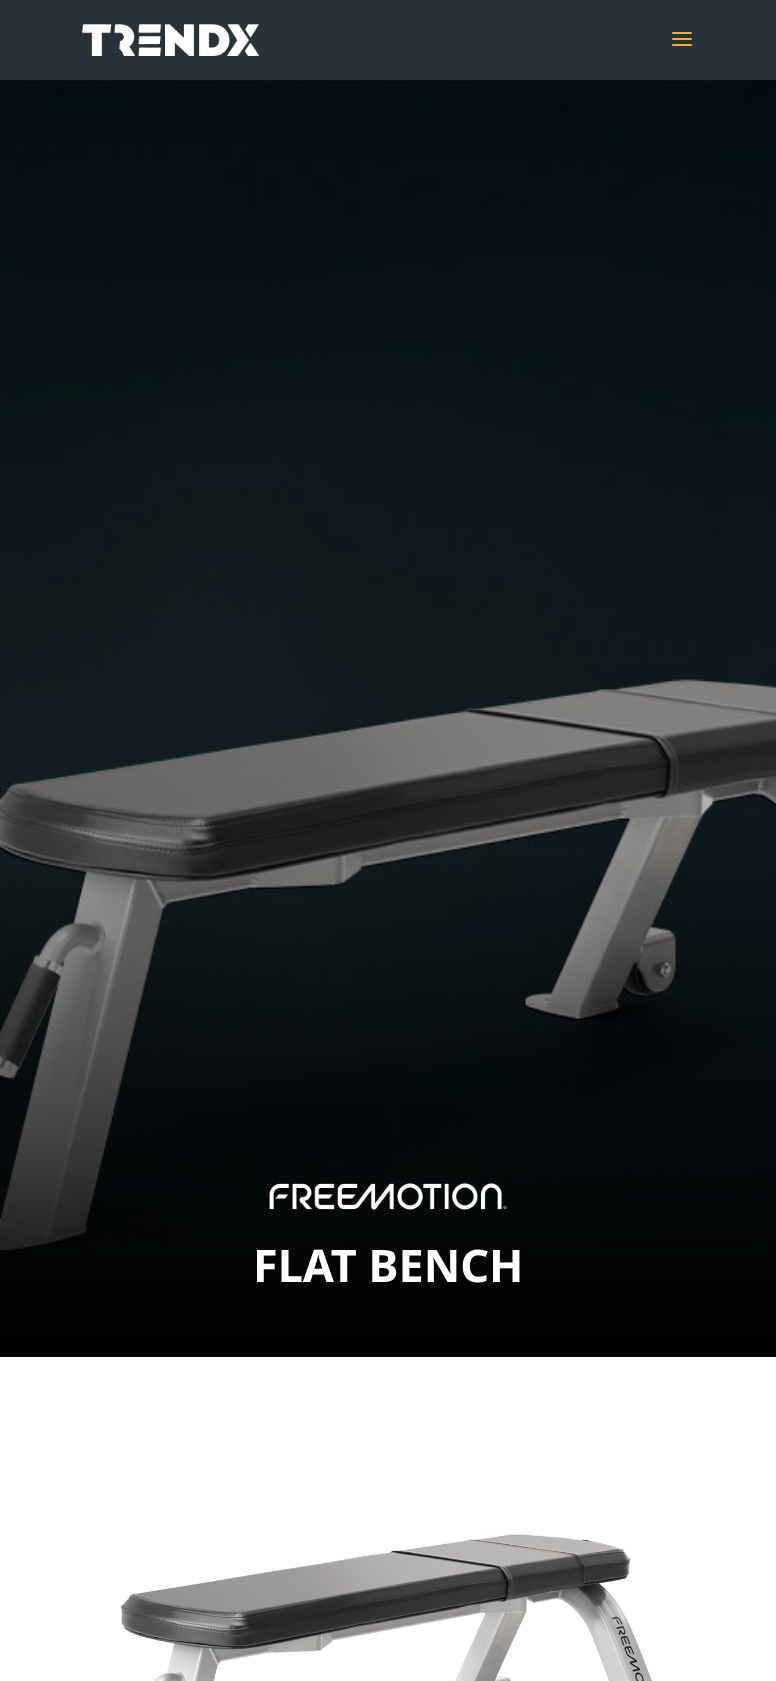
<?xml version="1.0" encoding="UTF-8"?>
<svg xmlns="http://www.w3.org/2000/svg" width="776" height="1681">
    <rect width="100%" height="100%" fill="#FFFFFF"/>
    <rect x="0" y="0" width="776" height="80" fill="#293337"/>
    <image x="82" y="24" width="177" height="32" href="img_01.png"/>
    <image x="672" y="32" width="20" height="14" href="img_02.png"/>
    <image x="0" y="80" width="776" height="1277" href="img_03.png"/>
    <image x="269" y="1183" width="238" height="27" href="img_04.png"/>
    <text x="253" y="1282" font-family="Noto Sans" font-size="45" font-weight="700" fill="#FFFFFF">FLAT BENCH</text>
    <image x="120" y="1534" width="532" height="147" href="img_05.png"/>
</svg>
